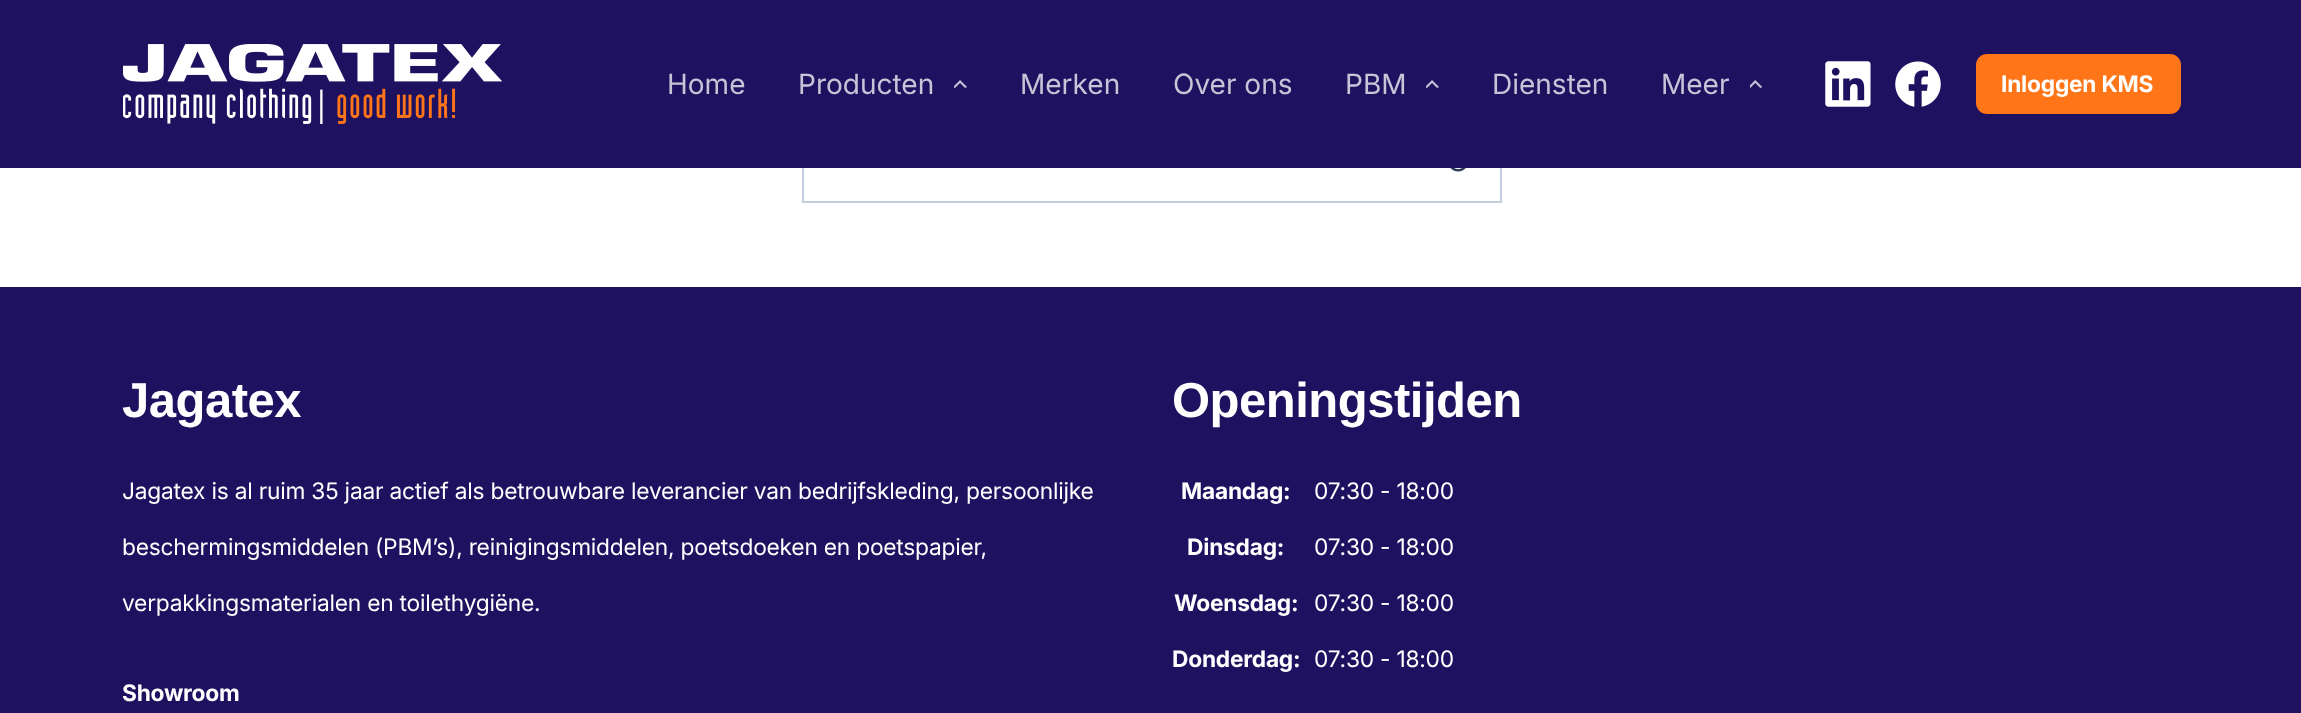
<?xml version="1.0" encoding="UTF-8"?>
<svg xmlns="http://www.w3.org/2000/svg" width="2301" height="713">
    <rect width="100%" height="100%" fill="#FFFFFF"/>
    <rect x="0" y="0" width="2301" height="168" fill="#1D1160"/>
    <image x="123" y="44" width="379" height="80" href="img_01.png"/>
    <text x="667" y="94" font-family="Inter" font-size="28" fill="#C7C4D7">Home</text>
    <text x="798" y="94" font-family="Inter" font-size="28" fill="#C7C4D7">Producten</text>
    <image x="954" y="80" width="13" height="8" href="img_02.png"/>
    <text x="1020" y="94" font-family="Inter" font-size="28" fill="#C7C4D7">Merken</text>
    <text x="1173" y="94" font-family="Inter" font-size="28" fill="#C7C4D7">Over ons</text>
    <text x="1345" y="94" font-family="Inter" font-size="28" fill="#C7C4D7">PBM</text>
    <image x="1426" y="80" width="13" height="8" href="img_03.png"/>
    <text x="1492" y="94" font-family="Inter" font-size="28" fill="#C7C4D7">Diensten</text>
    <text x="1661" y="94" font-family="Inter" font-size="28" fill="#C7C4D7">Meer</text>
    <image x="1750" y="80" width="13" height="8" href="img_04.png"/>
    <image x="1825" y="61" width="46" height="46" href="img_05.png"/>
    <image x="1895" y="61" width="46" height="46" href="img_06.png"/>
    <rect x="1976" y="54" width="205" height="60" rx="11" fill="#FF7518"/>
    <text x="2001" y="92" font-family="Inter" font-size="22.75" font-weight="700" letter-spacing="-0.23" fill="#FFFFFF">Inloggen KMS</text>
    <rect x="802" y="201" width="616" height="2" fill="#C5CEE0"/>
    <rect x="802" y="168" width="2" height="35" fill="#C5CEE0"/>
    <rect x="1500" y="168" width="2" height="35" fill="#C5CEE0"/>
    <rect x="1418" y="201" width="84" height="2" fill="#C5CEE0"/>
    <image x="1450" y="168" width="16" height="4" href="img_07.png"/>
    <rect x="0" y="287" width="2301" height="426" fill="#1D1160"/>
    <text x="122" y="417" font-family="Liberation Sans" font-size="49" font-weight="700" letter-spacing="-0.5" fill="#FFFFFF">Jagatex</text>
    <text x="122" y="499" font-family="Inter" font-size="22.75" letter-spacing="-0.23" fill="#FFFFFF">Jagatex is al ruim 35 jaar actief als betrouwbare leverancier van bedrijfskleding, persoonlijke</text>
    <text x="122" y="555" font-family="Inter" font-size="22.75" letter-spacing="-0.23" fill="#FFFFFF">beschermingsmiddelen (PBM’s), reinigingsmiddelen, poetsdoeken en poetspapier,</text>
    <text x="122" y="611" font-family="Inter" font-size="22.75" letter-spacing="-0.23" fill="#FFFFFF">verpakkingsmaterialen en toilethygiëne.</text>
    <text x="122" y="701" font-family="Inter" font-size="22.75" font-weight="700" letter-spacing="-0.23" fill="#FFFFFF">Showroom</text>
    <text x="1172" y="417" font-family="Liberation Sans" font-size="49" font-weight="700" letter-spacing="-0.5" fill="#FFFFFF">Openingstijden</text>
    <text x="1181" y="499" font-family="Inter" font-size="22.75" font-weight="700" letter-spacing="-0.23" fill="#FFFFFF">Maandag:</text>
    <text x="1314" y="499" font-family="Inter" font-size="22.75" letter-spacing="-0.23" fill="#FFFFFF">07:30 - 18:00</text>
    <text x="1187" y="555" font-family="Inter" font-size="22.75" font-weight="700" letter-spacing="-0.23" fill="#FFFFFF">Dinsdag:</text>
    <text x="1314" y="555" font-family="Inter" font-size="22.75" letter-spacing="-0.23" fill="#FFFFFF">07:30 - 18:00</text>
    <text x="1174" y="611" font-family="Inter" font-size="22.75" font-weight="700" letter-spacing="-0.23" fill="#FFFFFF">Woensdag:</text>
    <text x="1314" y="611" font-family="Inter" font-size="22.75" letter-spacing="-0.23" fill="#FFFFFF">07:30 - 18:00</text>
    <text x="1172" y="667" font-family="Inter" font-size="22.75" font-weight="700" letter-spacing="-0.23" fill="#FFFFFF">Donderdag:</text>
    <text x="1314" y="667" font-family="Inter" font-size="22.75" letter-spacing="-0.23" fill="#FFFFFF">07:30 - 18:00</text>
</svg>
